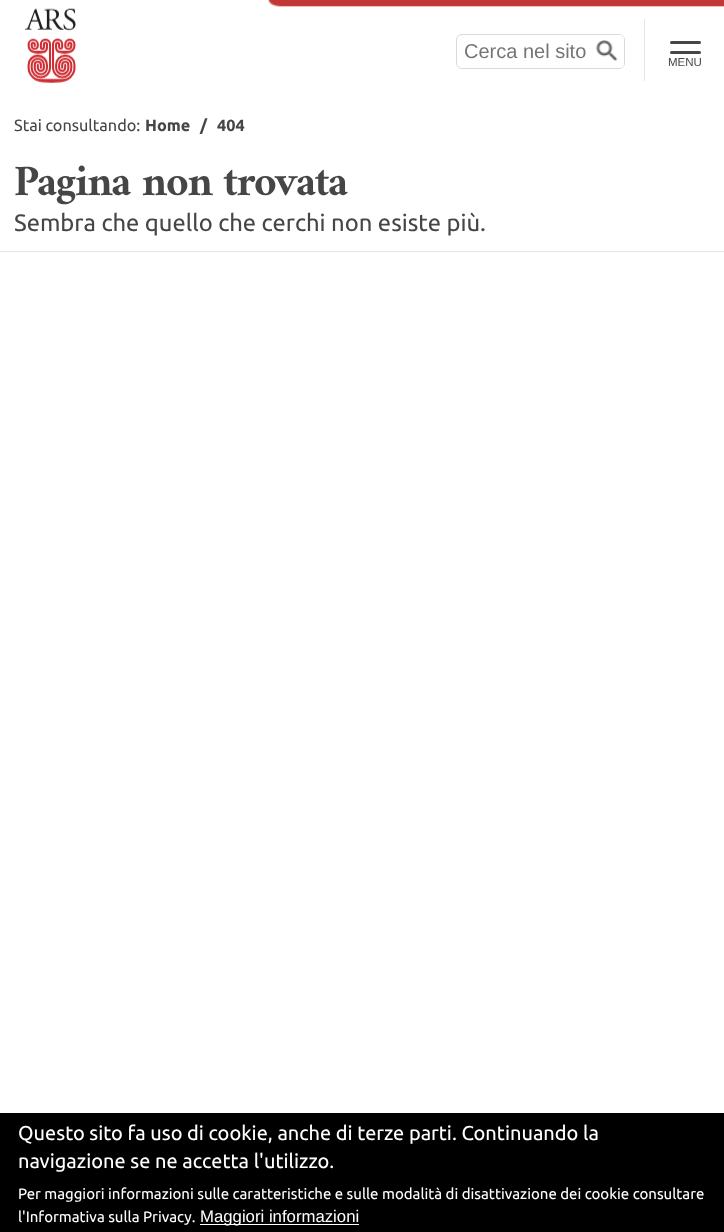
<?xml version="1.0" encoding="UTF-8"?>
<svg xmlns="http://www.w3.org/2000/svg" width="724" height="1232">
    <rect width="100%" height="100%" fill="#FFFFFF"/>
    <image x="268" y="0" width="456" height="7" href="img_01.png"/>
    <rect x="456.5" y="34.5" width="168" height="34" rx="5.5" fill="none" stroke="#DADADA"/>
    <text x="464" y="58" font-family="Liberation Sans" font-size="20" fill="#757575">Cerca nel sito</text>
    <path d="M 591 35 H 619 C 622 35 624 37 624 40 V 63 C 624 66 622 68 619 68 H 591 Z" fill="#FFFFFF"/>
    <image x="596" y="40" width="22" height="22" href="img_02.png"/>
    <image x="25" y="8" width="51" height="75" href="img_03.png"/>
    <rect x="644" y="19" width="1" height="62" fill="#E6E6E6"/>
    <rect x="670" y="41" width="31" height="3" rx="1.5" fill="#464646"/>
    <rect x="670" y="51" width="31" height="3" rx="1.5" fill="#464646"/>
    <text x="668" y="66" font-family="Liberation Sans" font-size="11.5" fill="#464646">MENU</text>
    <text x="14" y="131" font-family="Ubuntu" font-size="16.25" fill="#464646">Stai consultando:</text>
    <text x="145" y="131" font-family="Ubuntu" font-size="16.25" font-weight="700" fill="#464646">Home</text>
    <text x="200" y="131" font-family="Ubuntu" font-size="16.25" font-weight="700" fill="#464646">/</text>
    <text x="217" y="131" font-family="Ubuntu" font-size="16.25" font-weight="700" fill="#464646">404</text>
    <rect x="0" y="251" width="724" height="1" fill="#E6E6E6"/>
    <text x="14" y="195" font-family="Amiri" font-size="43.75" font-weight="700" letter-spacing="-1.25" fill="#464646">Pagina non trovata</text>
    <text x="14" y="231" font-family="Ubuntu" font-size="23.75" fill="#464646">Sembra che quello che cerchi non esiste più.</text>
    <rect x="0" y="1113" width="724" height="119" fill="#000000"/>
    <text font-family="Ubuntu" font-size="20" fill="#FFFFFF">
        <tspan x="18" y="1140">Questo sito fa uso di cookie, anche di terze parti. Continuando la</tspan>
        <tspan x="18" y="1168">navigazione se ne accetta l'utilizzo.</tspan>
    </text>
    <text font-family="Ubuntu" font-size="15" fill="#FFFFFF">
        <tspan x="18" y="1199">Per maggiori informazioni sulle caratteristiche e sulle modalità di disattivazione dei cookie consultare</tspan>
        <tspan x="18" y="1222">l'Informativa sulla Privacy.</tspan>
    </text>
    <rect x="200" y="1224" width="159" height="1" fill="#FFFFFF"/>
    <text x="200" y="1222" font-family="Liberation Sans" font-size="16.75" fill="#FFFFFF">Maggiori informazioni</text>
</svg>
